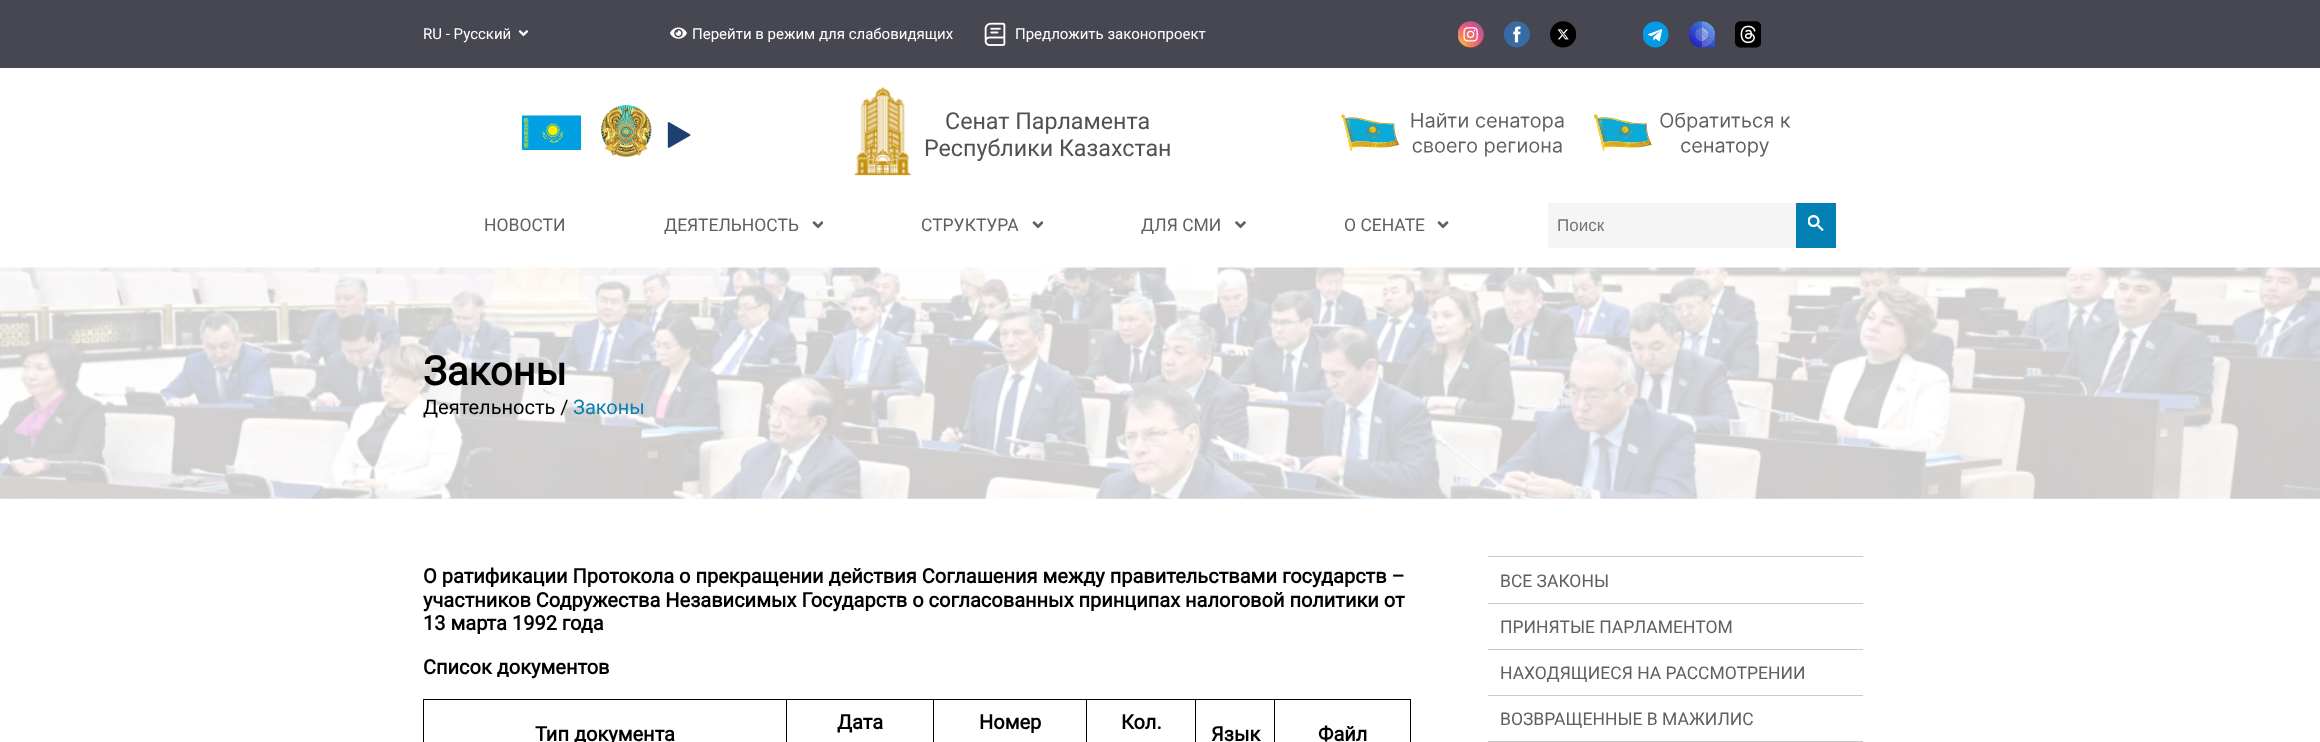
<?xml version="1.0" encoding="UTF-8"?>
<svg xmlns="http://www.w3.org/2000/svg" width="2320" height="742">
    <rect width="100%" height="100%" fill="#FFFFFF"/>
    <rect x="0" y="0" width="2320" height="68" fill="#464751"/>
    <text x="423" y="39" font-family="Roboto" font-size="15" fill="#FFFFFF">RU - Русский</text>
    <image x="518" y="30" width="11" height="7" href="img_01.png"/>
    <image x="670" y="27" width="17" height="12" href="img_02.png"/>
    <text x="692" y="39" font-family="Roboto" font-size="15" fill="#FFFFFF">Перейти в режим для слабовидящих</text>
    <image x="984" y="22" width="22" height="24" href="img_03.png"/>
    <text x="1015" y="39" font-family="Roboto" font-size="15" fill="#FFFFFF">Предложить законопроект</text>
    <image x="1458" y="21" width="26" height="27" href="img_04.png"/>
    <image x="1504" y="21" width="26" height="27" href="img_05.png"/>
    <image x="1550" y="21" width="26" height="27" href="img_06.png"/>
    <image x="1643" y="21" width="26" height="27" href="img_07.png"/>
    <image x="1689" y="21" width="26" height="27" href="img_08.png"/>
    <image x="1735" y="21" width="26" height="27" href="img_09.png"/>
    <image x="521" y="115" width="60" height="35" href="img_10.png"/>
    <image x="601" y="105" width="51" height="53" href="img_11.png"/>
    <image x="667" y="122" width="24" height="26" href="img_12.png"/>
    <image x="855" y="87" width="57" height="89" href="img_13.png"/>
    <text x="945" y="129" font-family="Roboto" font-size="23.25" fill="#505154">Сенат Парламента</text>
    <text x="924" y="156" font-family="Roboto" font-size="23.25" fill="#505154">Республики Казахстан</text>
    <image x="1341" y="113" width="223" height="44" href="img_14.png"/>
    <image x="1594" y="112" width="197" height="45" href="img_15.png"/>
    <text x="484" y="231" font-family="Roboto" font-size="17.5" fill="#606060">НОВОСТИ</text>
    <text x="664" y="231" font-family="Roboto" font-size="17.5" fill="#606060">ДЕЯТЕЛЬНОСТЬ</text>
    <image x="812" y="221" width="11" height="8" href="img_16.png"/>
    <text x="921" y="231" font-family="Roboto" font-size="17.5" fill="#606060">СТРУКТУРА</text>
    <image x="1032" y="221" width="11" height="8" href="img_16.png"/>
    <text x="1141" y="231" font-family="Roboto" font-size="17.5" fill="#606060">ДЛЯ СМИ</text>
    <image x="1235" y="221" width="11" height="8" href="img_17.png"/>
    <text x="1344" y="231" font-family="Roboto" font-size="17.5" fill="#606060">О СЕНАТЕ</text>
    <image x="1437" y="221" width="12" height="8" href="img_18.png"/>
    <rect x="1548" y="203" width="248" height="45" fill="#F5F5F5"/>
    <text x="1557" y="231" font-family="Liberation Sans" font-size="17" fill="#757575">Поиск</text>
    <rect x="1796" y="203" width="40" height="45" fill="#0380B3"/>
    <image x="1808" y="215" width="16" height="16" href="img_19.png"/>
    <image x="0" y="267" width="2320" height="232" href="img_20.png"/>
    <text x="423" y="385" font-family="Roboto" font-size="40" font-weight="700" fill="#000000">Законы</text>
    <text x="423" y="414" font-family="Roboto" font-size="20" fill="#000000">Деятельность /</text>
    <text x="573" y="414" font-family="Roboto" font-size="20" fill="#0A7FB1">Законы</text>
    <text font-family="Roboto" font-size="20" font-weight="700" fill="#000000">
        <tspan x="423" y="583">О ратификации Протокола о прекращении действия Соглашения между правительствами государств –</tspan>
        <tspan x="423" y="607">участников Содружества Независимых Государств о согласованных принципах налоговой политики от</tspan>
        <tspan x="423" y="630">13 марта 1992 года</tspan>
    </text>
    <text x="423" y="674" font-family="Roboto" font-size="20" font-weight="700" fill="#000000">Список документов</text>
    <rect x="1274" y="699" width="137" height="1" fill="#000000"/>
    <rect x="1274" y="699" width="1" height="43" fill="#000000"/>
    <rect x="1195" y="699" width="80" height="1" fill="#000000"/>
    <rect x="1195" y="699" width="1" height="43" fill="#000000"/>
    <rect x="1086" y="699" width="110" height="1" fill="#000000"/>
    <rect x="1086" y="699" width="1" height="43" fill="#000000"/>
    <rect x="933" y="699" width="155" height="1" fill="#000000"/>
    <rect x="933" y="699" width="1" height="43" fill="#000000"/>
    <rect x="786" y="699" width="148" height="1" fill="#000000"/>
    <rect x="786" y="699" width="1" height="43" fill="#000000"/>
    <text x="837" y="729" font-family="Roboto" font-size="20" font-weight="700" fill="#000000">Дата</text>
    <text x="979" y="729" font-family="Roboto" font-size="20" font-weight="700" fill="#000000">Номер</text>
    <text x="1121" y="729" font-family="Roboto" font-size="20" font-weight="700" fill="#000000">Кол.</text>
    <rect x="423" y="699" width="365" height="1" fill="#000000"/>
    <rect x="423" y="699" width="1" height="43" fill="#000000"/>
    <text x="535" y="741" font-family="Roboto" font-size="20" font-weight="700" fill="#000000">Тип документа</text>
    <text x="1211" y="741" font-family="Roboto" font-size="20" font-weight="700" fill="#000000">Язык</text>
    <rect x="1410" y="699" width="1" height="43" fill="#000000"/>
    <text x="1318" y="741" font-family="Roboto" font-size="20" font-weight="700" fill="#000000">Файл</text>
    <rect x="1488" y="556" width="375" height="1" fill="#CACACA"/>
    <rect x="1488" y="603" width="375" height="1" fill="#CACACA"/>
    <text x="1500" y="587" font-family="Roboto" font-size="17.5" fill="#606060">ВСЕ ЗАКОНЫ</text>
    <rect x="1488" y="649" width="375" height="1" fill="#CACACA"/>
    <text x="1500" y="633" font-family="Roboto" font-size="17.5" fill="#606060">ПРИНЯТЫЕ ПАРЛАМЕНТОМ</text>
    <rect x="1488" y="695" width="375" height="1" fill="#CACACA"/>
    <text x="1500" y="679" font-family="Roboto" font-size="17.5" fill="#606060">НАХОДЯЩИЕСЯ НА РАССМОТРЕНИИ</text>
    <rect x="1488" y="741" width="375" height="1" fill="#CACACA"/>
    <text x="1500" y="725" font-family="Roboto" font-size="17.5" fill="#606060">ВОЗВРАЩЕННЫЕ В МАЖИЛИС</text>
</svg>
